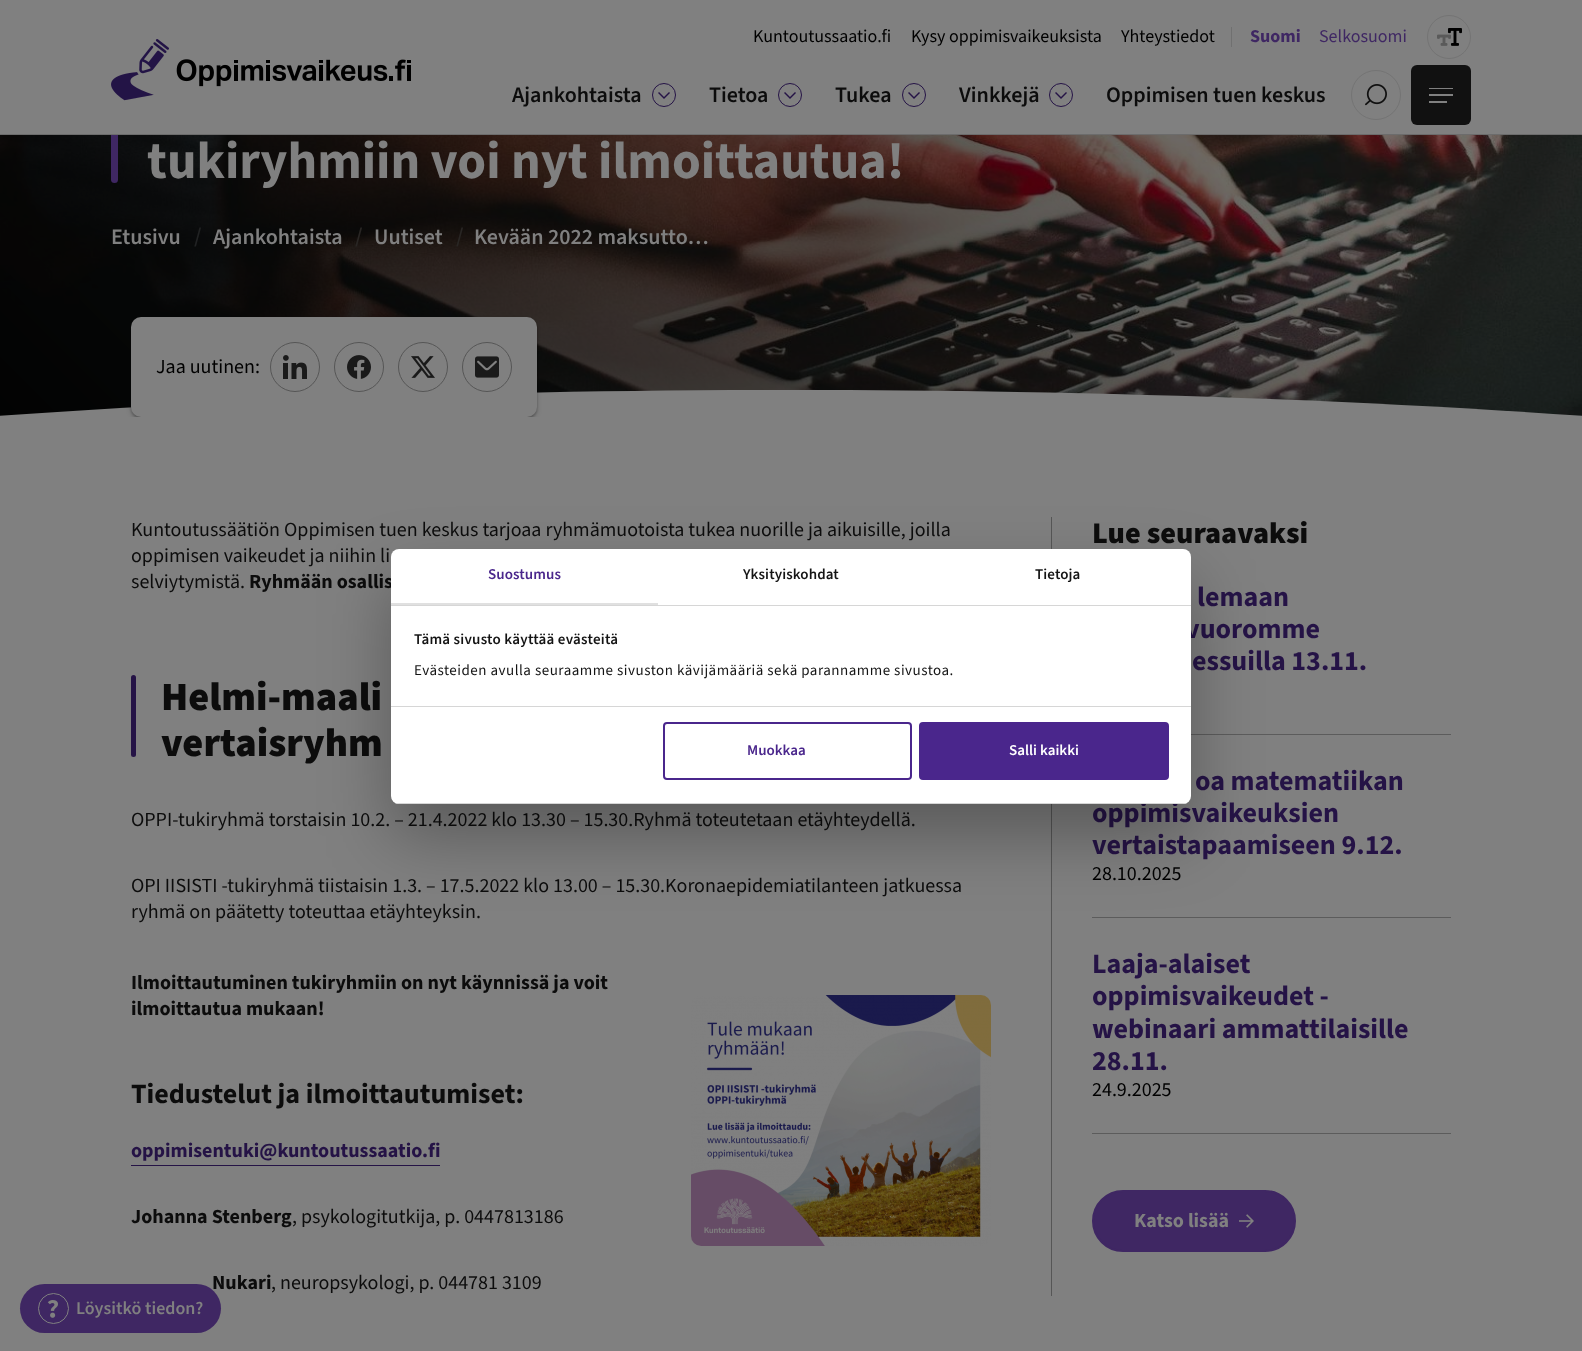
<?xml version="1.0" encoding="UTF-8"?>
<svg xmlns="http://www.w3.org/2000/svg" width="1582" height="1351">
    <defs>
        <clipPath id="clip1"><rect x="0" y="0" width="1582" height="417"/></clipPath>
        <filter id="blur1" x="-50%" y="-200%" width="200%" height="500%"><feGaussianBlur stdDeviation="1"/></filter>
        <filter id="blur2" x="-50%" y="-200%" width="200%" height="500%"><feGaussianBlur stdDeviation="2.5"/></filter>
        <filter id="blur3" x="-50%" y="-200%" width="200%" height="500%"><feGaussianBlur stdDeviation="34"/></filter>
        <clipPath id="clip2"><rect x="391" y="549" width="800" height="255" rx="8"/></clipPath>
    </defs>
    <rect width="100%" height="100%" fill="#808080"/>
    <image x="0" y="135" width="1582" height="281" href="img_05.png"/>
    <rect x="111" y="91" width="7" height="92" rx="3.5" fill="#3F2763"/>
    <rect x="111" y="91" width="7" height="43" fill="#808080"/>
    <rect x="0" y="134" width="1582" height="1" fill="#6C6C6C"/>
    <text x="753" y="42" font-family="'Source Sans 3'" font-size="18" fill="#000000">Kuntoutussaatio.fi</text>
    <text x="911" y="42" font-family="'Source Sans 3'" font-size="18" fill="#000000">Kysy oppimisvaikeuksista</text>
    <text x="1121" y="42" font-family="'Source Sans 3'" font-size="18" fill="#000000">Yhteystiedot</text>
    <rect x="1231" y="27" width="1" height="20" fill="#707070"/>
    <text x="1250" y="42" font-family="'Source Sans 3'" font-size="18" font-weight="700" fill="#3F2763">Suomi</text>
    <text x="1319" y="42" font-family="'Source Sans 3'" font-size="18" fill="#3F2763">Selkosuomi</text>
    <circle cx="1449" cy="37" r="21.5" fill="none" stroke="#747474"/>
    <image x="1437" y="28" width="25" height="18" href="img_01.png"/>
    <image x="111" y="39" width="300" height="62" href="img_02.png"/>
    <text x="512" y="102" font-family="'Source Sans 3'" font-size="22" font-weight="600" fill="#0C0C0C">Ajankohtaista</text>
    <circle cx="664" cy="95" r="11.5" fill="none" stroke="#251346"/>
    <image x="658" y="92" width="12" height="7" href="img_03.png"/>
    <text x="709" y="102" font-family="'Source Sans 3'" font-size="22" font-weight="600" fill="#0C0C0C">Tietoa</text>
    <circle cx="790" cy="95" r="11.5" fill="none" stroke="#251346"/>
    <image x="784" y="92" width="12" height="7" href="img_03.png"/>
    <text x="835" y="102" font-family="'Source Sans 3'" font-size="22" font-weight="600" fill="#0C0C0C">Tukea</text>
    <circle cx="914" cy="95" r="11.5" fill="none" stroke="#251346"/>
    <image x="908" y="92" width="12" height="7" href="img_03.png"/>
    <text x="959" y="102" font-family="'Source Sans 3'" font-size="22" font-weight="600" fill="#0C0C0C">Vinkkejä</text>
    <circle cx="1061" cy="95" r="11.5" fill="none" stroke="#251346"/>
    <image x="1055" y="92" width="12" height="7" href="img_03.png"/>
    <text x="1106" y="102" font-family="'Source Sans 3'" font-size="22" font-weight="600" fill="#0C0C0C">Oppimisen tuen keskus</text>
    <circle cx="1376" cy="95" r="24.5" fill="none" stroke="#747474"/>
    <image x="1365" y="84" width="22" height="22" href="img_04.png"/>
    <rect x="1411" y="65" width="60" height="60" rx="6" fill="#111111"/>
    <rect x="1429" y="88" width="24" height="1" fill="#808080"/>
    <rect x="1429" y="94" width="24" height="2" fill="#808080"/>
    <rect x="1429" y="101" width="18" height="2" fill="#808080"/>
    <text x="147" y="178" font-family="'Source Sans 3'" font-size="52" font-weight="700" fill="#808080">tukiryhmiin voi nyt ilmoittautua!</text>
    <text x="111" y="244" font-family="'Source Sans 3'" font-size="22" font-weight="600" fill="#808080">Etusivu</text>
    <text x="194" y="243" font-family="'Source Sans 3'" font-size="22" font-weight="600" fill="#212223">/</text>
    <text x="213" y="244" font-family="'Source Sans 3'" font-size="22" font-weight="600" fill="#808080">Ajankohtaista</text>
    <text x="355" y="243" font-family="'Source Sans 3'" font-size="22" font-weight="600" fill="#292624">/</text>
    <text x="374" y="244" font-family="'Source Sans 3'" font-size="22" font-weight="600" fill="#808080">Uutiset</text>
    <text x="456" y="243" font-family="'Source Sans 3'" font-size="22" font-weight="600" fill="#292624">/</text>
    <text x="474" y="244" font-family="'Source Sans 3'" font-size="22" font-weight="600" fill="#808080">Kevään 2022 maksutto…</text>
    <path d="M -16 417 H 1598 C 1367 400 1090 390 791 390 C 492 390 215 400 -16 417 Z" fill="#808080"/>
    <g clip-path="url(#clip1)">
        <rect x="131" y="319" width="406" height="100" rx="10" fill="#000000" fill-opacity="0.2" filter="url(#blur1)"/>
        <rect x="131" y="319" width="406" height="100" rx="10" fill="#000000" fill-opacity="0.2" filter="url(#blur2)"/>
    </g>
    <rect x="131" y="317" width="406" height="100" rx="10" fill="#808080"/>
    <text x="156" y="373" font-family="'Source Sans 3'" font-size="20" fill="#000000">Jaa uutinen:</text>
    <circle cx="295" cy="367" r="24.5" fill="none" stroke="#565656"/>
    <image x="283" y="355" width="24" height="24" href="img_06.png"/>
    <circle cx="359" cy="367" r="24.5" fill="none" stroke="#565656"/>
    <image x="347" y="355" width="24" height="24" href="img_07.png"/>
    <circle cx="423" cy="367" r="24.5" fill="none" stroke="#565656"/>
    <image x="411" y="356" width="24" height="22" href="img_08.png"/>
    <circle cx="487" cy="367" r="24.5" fill="none" stroke="#565656"/>
    <image x="475" y="356" width="24" height="22" href="img_09.png"/>
    <text font-family="'Source Sans 3'" font-size="20" fill="#0C0C0C">
        <tspan x="131" y="536">Kuntoutussäätiön Oppimisen tuen keskus tarjoaa ryhmämuotoista tukea nuorille ja aikuisille, joilla</tspan>
        <tspan x="131" y="562">oppimisen vaikeudet ja niihin li</tspan>
        <tspan x="131" y="588">selviytymistä.</tspan>
    </text>
    <text x="249" y="588" font-family="'Source Sans 3'" font-size="20" font-weight="700" fill="#0C0C0C">Ryhmään osallis</text>
    <rect x="131" y="675" width="5" height="82" rx="2.5" fill="#251346"/>
    <text font-family="'Source Sans 3'" font-size="40" font-weight="900" fill="#0C0C0C">
        <tspan x="161" y="710">Helmi-maali</tspan>
        <tspan x="161" y="756">vertaisryhm</tspan>
    </text>
    <text x="131" y="826" font-family="'Source Sans 3'" font-size="20" fill="#0C0C0C">OPPI-tukiryhmä torstaisin 10.2. – 21.4.2022 klo 13.30 – 15.30.Ryhmä toteutetaan etäyhteydellä.</text>
    <text font-family="'Source Sans 3'" font-size="20" fill="#0C0C0C">
        <tspan x="131" y="892">OPI IISISTI -tukiryhmä tiistaisin 1.3. – 17.5.2022 klo 13.00 – 15.30.Koronaepidemiatilanteen jatkuessa</tspan>
        <tspan x="131" y="918">ryhmä on päätetty toteuttaa etäyhteyksin.</tspan>
    </text>
    <text font-family="'Source Sans 3'" font-size="20" font-weight="700" fill="#0C0C0C">
        <tspan x="131" y="989">Ilmoittautuminen tukiryhmiin on nyt käynnissä ja voit</tspan>
        <tspan x="131" y="1015">ilmoittautua mukaan!</tspan>
    </text>
    <image x="691" y="995" width="300" height="251" href="img_10.png"/>
    <text x="131" y="1103" font-family="'Source Sans 3'" font-size="28" font-weight="700" fill="#0C0C0C">Tiedustelut ja ilmoittautumiset:</text>
    <text x="131" y="1157" font-family="'Source Sans 3'" font-size="20" font-weight="700" fill="#251346">oppimisentuki@kuntoutussaatio.fi</text>
    <rect x="131" y="1165" width="309" height="1" fill="#251346"/>
    <text x="131" y="1223" font-family="'Source Sans 3'" font-size="20" font-weight="700" fill="#0C0C0C">Johanna Stenberg</text>
    <text x="292" y="1223" font-family="'Source Sans 3'" font-size="20" fill="#0C0C0C">, psykologitutkija, p. 0447813186</text>
    <text x="212" y="1289" font-family="'Source Sans 3'" font-size="20" font-weight="700" fill="#0C0C0C">Nukari</text>
    <text x="271" y="1289" font-family="'Source Sans 3'" font-size="20" fill="#0C0C0C">, neuropsykologi, p. 044781 3109</text>
    <rect x="1051" y="517" width="1" height="779" fill="#565656"/>
    <text x="1092" y="543" font-family="'Source Sans 3'" font-size="30" font-weight="900" fill="#0C0C0C">Lue seuraavaksi</text>
    <rect x="1191" y="734" width="260" height="1" fill="#5C5C5C"/>
    <text x="1197" y="606" font-family="'Source Sans 3'" font-size="28" font-weight="700" fill="#251346">lemaan</text>
    <text x="1185" y="638" font-family="'Source Sans 3'" font-size="28" font-weight="700" fill="#251346">vuoromme</text>
    <text x="1192" y="670" font-family="'Source Sans 3'" font-size="28" font-weight="700" fill="#251346">essuilla 13.11.</text>
    <rect x="1092" y="917" width="359" height="1" fill="#5C5C5C"/>
    <text x="1195" y="790" font-family="'Source Sans 3'" font-size="28" font-weight="700" fill="#251346">oa matematiikan</text>
    <text font-family="'Source Sans 3'" font-size="28" font-weight="700" fill="#251346">
        <tspan x="1092" y="822">oppimisvaikeuksien</tspan>
        <tspan x="1092" y="854">vertaistapaamiseen 9.12.</tspan>
    </text>
    <text x="1092" y="880" font-family="'Source Sans 3'" font-size="20" fill="#000000">28.10.2025</text>
    <rect x="1092" y="1133" width="359" height="1" fill="#5C5C5C"/>
    <text font-family="'Source Sans 3'" font-size="28" font-weight="700" fill="#251346">
        <tspan x="1092" y="973">Laaja-alaiset</tspan>
        <tspan x="1092" y="1005">oppimisvaikeudet -</tspan>
        <tspan x="1092" y="1038">webinaari ammattilaisille</tspan>
        <tspan x="1092" y="1070">28.11.</tspan>
    </text>
    <text x="1092" y="1096" font-family="'Source Sans 3'" font-size="20" fill="#000000">24.9.2025</text>
    <rect x="1093" y="1191" width="202" height="60" rx="30" fill="#3F2763" stroke="#3F2763" stroke-width="2"/>
    <text x="1134" y="1227" font-family="'Source Sans 3'" font-size="20" font-weight="700" fill="#808080">Katso lisää</text>
    <image x="1239" y="1214" width="15" height="14" href="img_11.png"/>
    <rect x="391" y="581" width="800" height="255" rx="8" fill="#000000" fill-opacity="0.3" filter="url(#blur3)"/>
    <rect x="391" y="549" width="800" height="255" rx="8" fill="#FFFFFF"/>
    <rect x="391" y="605" width="800" height="1" fill="#D6D6D6"/>
    <rect x="391" y="603" width="267" height="2" fill="#E0E0E0"/>
    <text x="488" y="579" font-family="'Source Sans 3'" font-size="15" font-weight="600" letter-spacing="0.1" fill="#4A268C">Suostumus</text>
    <text x="743" y="579" font-family="'Source Sans 3'" font-size="15" font-weight="600" letter-spacing="0.1" fill="#141414">Yksityiskohdat</text>
    <text x="1035" y="579" font-family="'Source Sans 3'" font-size="15" font-weight="600" letter-spacing="0.1" fill="#141414">Tietoja</text>
    <rect x="391" y="706" width="800" height="1" fill="#D6D6D6"/>
    <text x="414" y="644" font-family="'Source Sans 3'" font-size="15" font-weight="600" letter-spacing="0.25" fill="#141414">Tämä sivusto käyttää evästeitä</text>
    <text x="414" y="675" font-family="'Source Sans 3'" font-size="15" letter-spacing="0.5" fill="#141414">Evästeiden avulla seuraamme sivuston kävijämääriä sekä parannamme sivustoa.</text>
    <g clip-path="url(#clip2)">
        <rect x="391" y="803" width="800" height="1" fill="#D6D6D6"/>
    </g>
    <rect x="664" y="723" width="247" height="56" rx="3" fill="none" stroke="#4A268C" stroke-width="2"/>
    <text x="747" y="755" font-family="'Source Sans 3'" font-size="15" font-weight="600" fill="#4A268C">Muokkaa</text>
    <rect x="920" y="723" width="248" height="56" rx="3" fill="#4A268C" stroke="#4A268C" stroke-width="2"/>
    <text x="1009" y="755" font-family="'Source Sans 3'" font-size="15" font-weight="600" fill="#FFFFFF">Salli kaikki</text>
    <rect x="20" y="1284" width="201" height="49" rx="24.5" fill="#3F2763"/>
    <circle cx="53.5" cy="1308.5" r="15" fill="none" stroke="#808080"/>
    <image x="47" y="1300" width="11" height="18" href="img_12.png"/>
    <text x="76" y="1314" font-family="'Source Sans 3'" font-size="18" font-weight="600" fill="#808080">Löysitkö tiedon?</text>
</svg>
